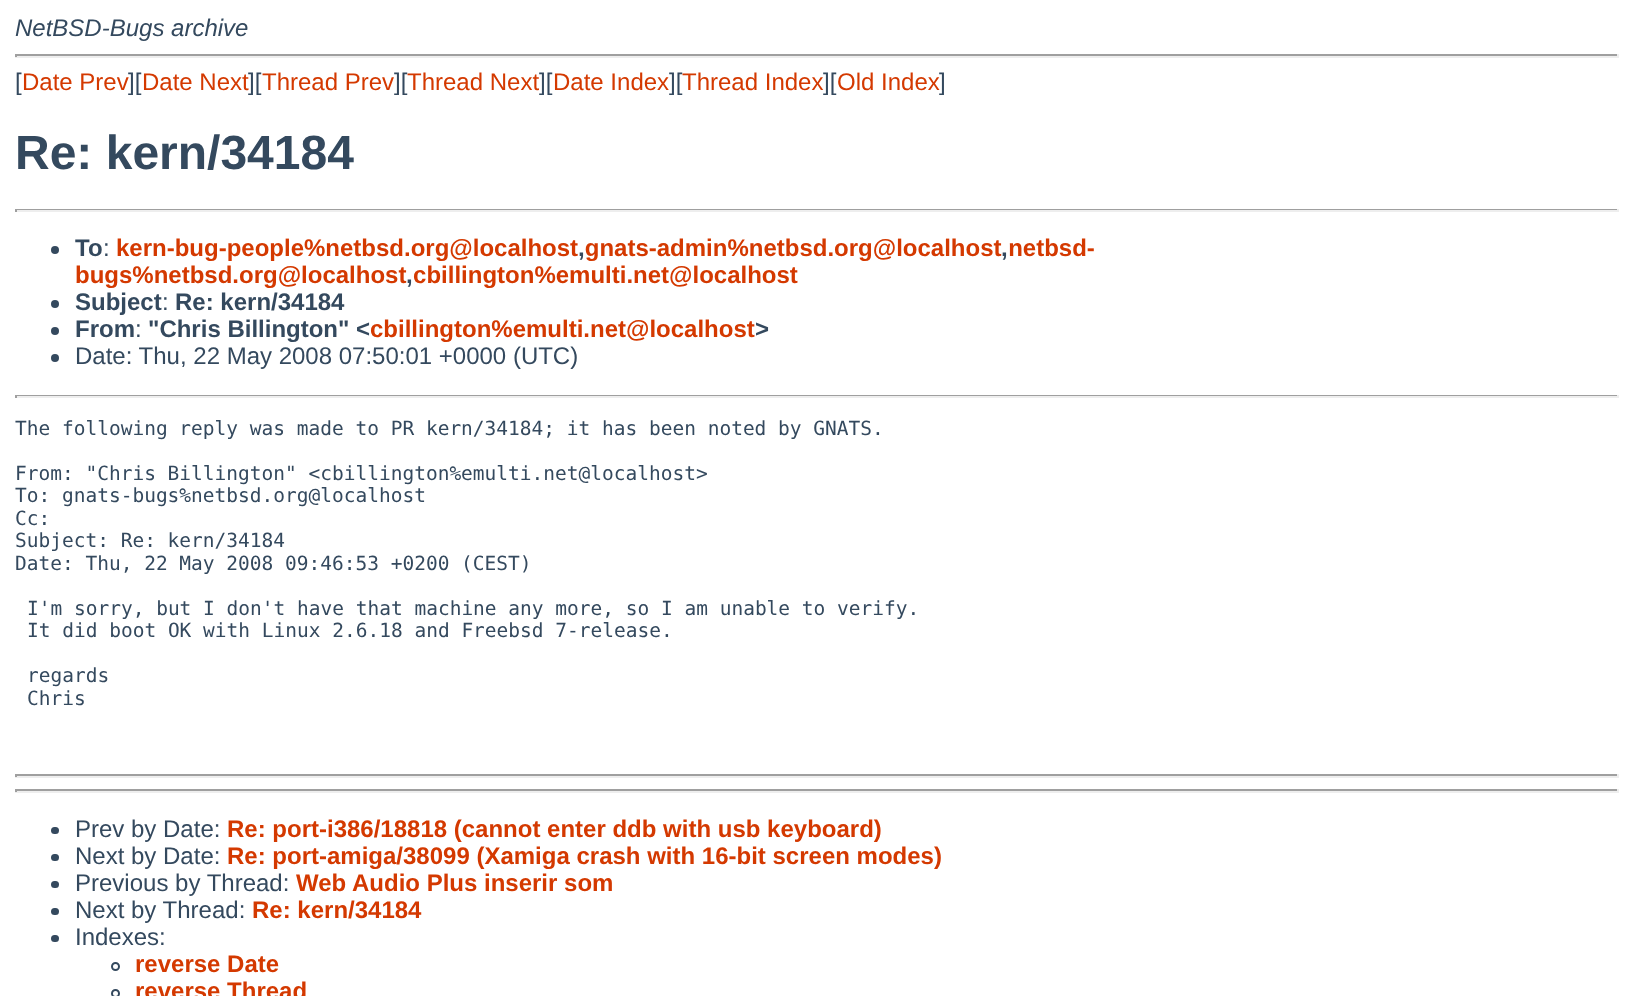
<?xml version="1.0" encoding="UTF-8"?>
<svg xmlns="http://www.w3.org/2000/svg" width="1633" height="996">
    <rect width="100%" height="100%" fill="#FFFFFF"/>
    <text x="15" y="36" font-family="Liberation Sans" font-size="24" font-style="italic" fill="#34495E">NetBSD-Bugs archive</text>
    <rect x="15" y="54" width="1604" height="2" fill="#9F9F9F"/>
    <rect x="1617" y="54" width="2" height="3" fill="#EEEEEE"/>
    <rect x="15" y="56" width="1604" height="2" fill="#EEEEEE"/>
    <rect x="15" y="54" width="2" height="3" fill="#9F9F9F"/>
    <text x="15" y="90" font-family="Liberation Sans" font-size="24" fill="#34495E">[</text>
    <text x="22" y="90" font-family="Liberation Sans" font-size="24" fill="#D43900">Date Prev</text>
    <text x="128" y="90" font-family="Liberation Sans" font-size="24" fill="#34495E">][</text>
    <text x="142" y="90" font-family="Liberation Sans" font-size="24" fill="#D43900">Date Next</text>
    <text x="248" y="90" font-family="Liberation Sans" font-size="24" fill="#34495E">][</text>
    <text x="262" y="90" font-family="Liberation Sans" font-size="24" fill="#D43900">Thread Prev</text>
    <text x="394" y="90" font-family="Liberation Sans" font-size="24" fill="#34495E">][</text>
    <text x="407" y="90" font-family="Liberation Sans" font-size="24" fill="#D43900">Thread Next</text>
    <text x="539" y="90" font-family="Liberation Sans" font-size="24" fill="#34495E">][</text>
    <text x="553" y="90" font-family="Liberation Sans" font-size="24" fill="#D43900">Date Index</text>
    <text x="669" y="90" font-family="Liberation Sans" font-size="24" fill="#34495E">][</text>
    <text x="682" y="90" font-family="Liberation Sans" font-size="24" fill="#D43900">Thread Index</text>
    <text x="823" y="90" font-family="Liberation Sans" font-size="24" fill="#34495E">][</text>
    <text x="837" y="90" font-family="Liberation Sans" font-size="24" fill="#D43900">Old Index</text>
    <text x="939" y="90" font-family="Liberation Sans" font-size="24" fill="#34495E">]</text>
    <text x="15" y="169" font-family="Liberation Sans" font-size="48" font-weight="700" fill="#34495E">Re: kern/34184</text>
    <rect x="15" y="209" width="1604" height="1" fill="#9F9F9F"/>
    <rect x="1617" y="209" width="2" height="3" fill="#EEEEEE"/>
    <rect x="15" y="210" width="1604" height="2" fill="#EEEEEE"/>
    <rect x="15" y="209" width="2" height="3" fill="#9F9F9F"/>
    <circle cx="55" cy="250" r="4" fill="#34495E"/>
    <text x="75" y="256" font-family="Liberation Sans" font-size="24" font-weight="700" fill="#34495E">To</text>
    <text x="103" y="256" font-family="Liberation Sans" font-size="24" fill="#34495E">:</text>
    <text x="116" y="256" font-family="Liberation Sans" font-size="24" font-weight="700" fill="#D43900">kern-bug-people%netbsd.org@localhost gnats-admin%netbsd.org@localhost netbsd-</text>
    <text x="578" y="256" font-family="Liberation Sans" font-size="24" font-weight="700" fill="#34495E">,</text>
    <text x="1001" y="256" font-family="Liberation Sans" font-size="24" font-weight="700" fill="#34495E">,</text>
    <text x="75" y="283" font-family="Liberation Sans" font-size="24" font-weight="700" fill="#D43900">bugs%netbsd.org@localhost cbillington%emulti.net@localhost</text>
    <text x="406" y="283" font-family="Liberation Sans" font-size="24" font-weight="700" fill="#34495E">,</text>
    <circle cx="55" cy="304" r="4" fill="#34495E"/>
    <text x="75" y="310" font-family="Liberation Sans" font-size="24" font-weight="700" fill="#34495E">Subject</text>
    <text x="162" y="310" font-family="Liberation Sans" font-size="24" fill="#34495E">:</text>
    <text x="175" y="310" font-family="Liberation Sans" font-size="24" font-weight="700" fill="#34495E">Re: kern/34184</text>
    <circle cx="55" cy="331" r="4" fill="#34495E"/>
    <text x="75" y="337" font-family="Liberation Sans" font-size="24" font-weight="700" fill="#34495E">From</text>
    <text x="135" y="337" font-family="Liberation Sans" font-size="24" fill="#34495E">:</text>
    <text x="148" y="337" font-family="Liberation Sans" font-size="24" font-weight="700" fill="#34495E">"Chris Billington" &lt;</text>
    <text x="370" y="337" font-family="Liberation Sans" font-size="24" font-weight="700" fill="#D43900">cbillington%emulti.net@localhost</text>
    <text x="755" y="337" font-family="Liberation Sans" font-size="24" font-weight="700" fill="#34495E">&gt;</text>
    <circle cx="55" cy="358" r="4" fill="#34495E"/>
    <text x="75" y="364" font-family="Liberation Sans" font-size="24" fill="#34495E">Date: Thu, 22 May 2008 07:50:01 +0000 (UTC)</text>
    <rect x="15" y="395" width="1604" height="1" fill="#9F9F9F"/>
    <rect x="1617" y="395" width="2" height="3" fill="#EEEEEE"/>
    <rect x="15" y="396" width="1604" height="2" fill="#EEEEEE"/>
    <rect x="15" y="395" width="2" height="3" fill="#9F9F9F"/>
    <text x="15" y="435" font-family="DejaVu Sans Mono" font-size="19.5" fill="#34495E">The following reply was made to PR kern/34184; it has been noted by GNATS.</text>
    <text font-family="DejaVu Sans Mono" font-size="19.5" fill="#34495E">
        <tspan x="15" y="480">From: "Chris Billington" &lt;cbillington%emulti.net@localhost&gt;</tspan>
        <tspan x="15" y="502">To: gnats-bugs%netbsd.org@localhost</tspan>
        <tspan x="15" y="525">Cc:</tspan>
        <tspan x="15" y="547">Subject: Re: kern/34184</tspan>
        <tspan x="15" y="570">Date: Thu, 22 May 2008 09:46:53 +0200 (CEST)</tspan>
    </text>
    <text font-family="DejaVu Sans Mono" font-size="19.5" fill="#34495E">
        <tspan x="27" y="615">I'm sorry, but I don't have that machine any more, so I am unable to verify.</tspan>
        <tspan x="27" y="637">It did boot OK with Linux 2.6.18 and Freebsd 7-release.</tspan>
    </text>
    <text font-family="DejaVu Sans Mono" font-size="19.5" fill="#34495E">
        <tspan x="27" y="682">regards</tspan>
        <tspan x="27" y="705">Chris</tspan>
    </text>
    <rect x="15" y="774" width="1604" height="2" fill="#9F9F9F"/>
    <rect x="1617" y="774" width="2" height="3" fill="#EEEEEE"/>
    <rect x="15" y="776" width="1604" height="2" fill="#EEEEEE"/>
    <rect x="15" y="774" width="2" height="3" fill="#9F9F9F"/>
    <rect x="15" y="789" width="1604" height="2" fill="#9F9F9F"/>
    <rect x="1617" y="789" width="2" height="3" fill="#EEEEEE"/>
    <rect x="15" y="791" width="1604" height="2" fill="#EEEEEE"/>
    <rect x="15" y="789" width="2" height="3" fill="#9F9F9F"/>
    <rect x="51" y="827" width="8" height="7" rx="3.5" fill="#34495E"/>
    <text x="75" y="837" font-family="Liberation Sans" font-size="24" fill="#34495E">Prev by Date:</text>
    <text x="227" y="837" font-family="Liberation Sans" font-size="24" font-weight="700" fill="#D43900">Re: port-i386/18818 (cannot enter ddb with usb keyboard)</text>
    <rect x="51" y="854" width="8" height="7" rx="3.5" fill="#34495E"/>
    <text x="75" y="864" font-family="Liberation Sans" font-size="24" fill="#34495E">Next by Date:</text>
    <text x="227" y="864" font-family="Liberation Sans" font-size="24" font-weight="700" fill="#D43900">Re: port-amiga/38099 (Xamiga crash with 16-bit screen modes)</text>
    <rect x="51" y="881" width="8" height="7" rx="3.5" fill="#34495E"/>
    <text x="75" y="891" font-family="Liberation Sans" font-size="24" fill="#34495E">Previous by Thread:</text>
    <text x="296" y="891" font-family="Liberation Sans" font-size="24" font-weight="700" fill="#D43900">Web Audio Plus inserir som</text>
    <rect x="51" y="908" width="8" height="7" rx="3.5" fill="#34495E"/>
    <text x="75" y="918" font-family="Liberation Sans" font-size="24" fill="#34495E">Next by Thread:</text>
    <text x="252" y="918" font-family="Liberation Sans" font-size="24" font-weight="700" fill="#D43900">Re: kern/34184</text>
    <rect x="51" y="935" width="8" height="7" rx="3.5" fill="#34495E"/>
    <text x="75" y="945" font-family="Liberation Sans" font-size="24" fill="#34495E">Indexes:</text>
    <circle cx="115.5" cy="966.5" r="3.5" fill="none" stroke="#34495E" stroke-width="2"/>
    <text x="135" y="972" font-family="Liberation Sans" font-size="24" font-weight="700" fill="#D43900">reverse Date</text>
    <circle cx="115.5" cy="993.5" r="3.5" fill="none" stroke="#34495E" stroke-width="2"/>
    <text x="135" y="999" font-family="Liberation Sans" font-size="24" font-weight="700" fill="#D43900">reverse Thread</text>
</svg>
